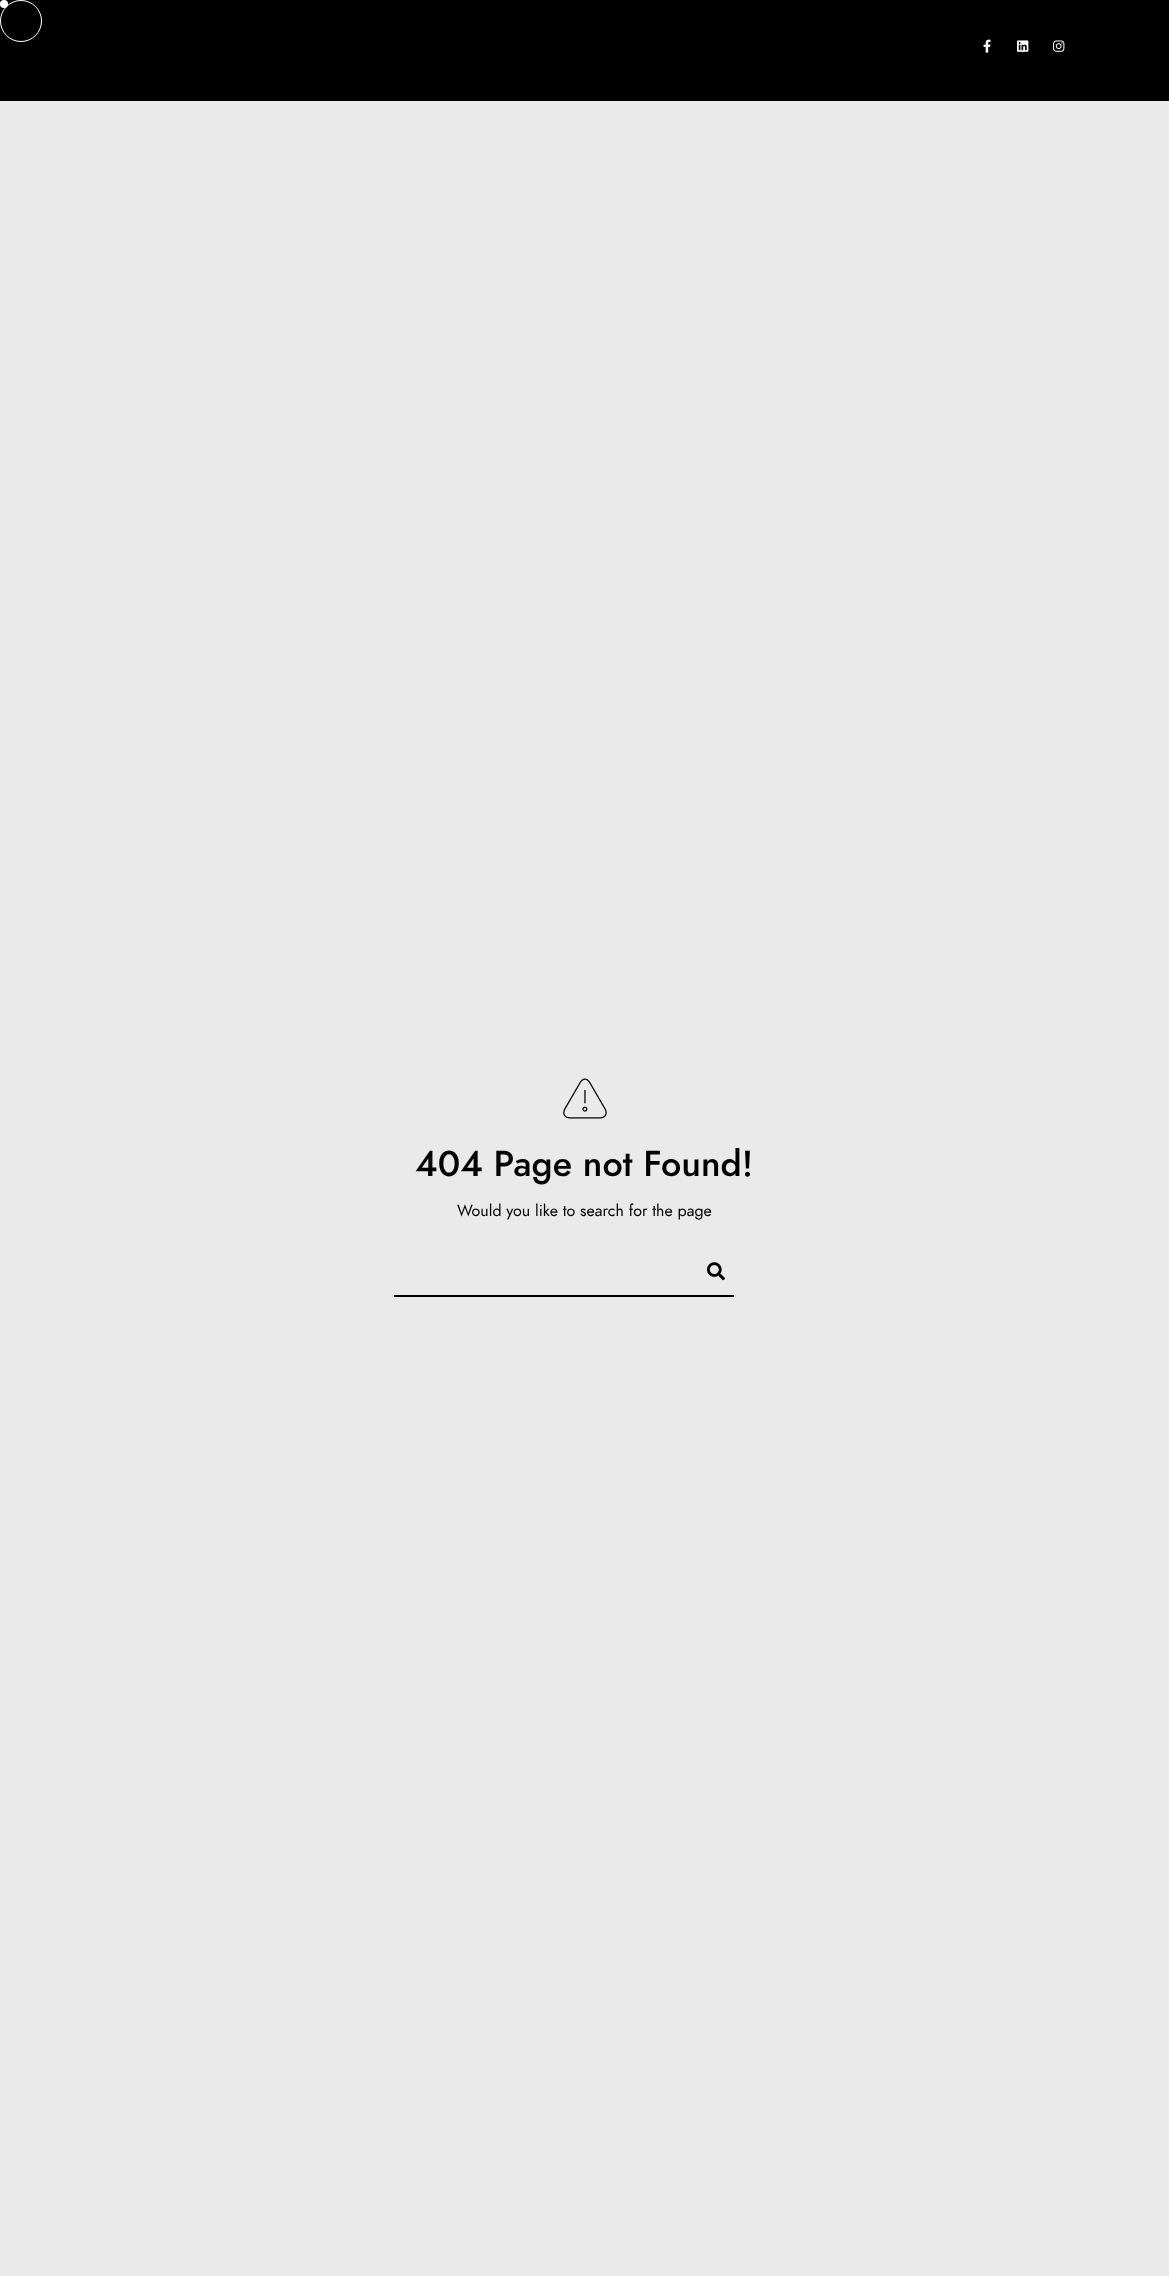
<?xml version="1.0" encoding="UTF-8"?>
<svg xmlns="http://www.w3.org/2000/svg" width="1169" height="2276">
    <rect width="100%" height="100%" fill="#EAEAEA"/>
    <rect x="0" y="0" width="1169" height="101" fill="#000000"/>
    <image x="983" y="39" width="8" height="14" href="img_01.png"/>
    <image x="1017" y="40" width="12" height="12" href="img_02.png"/>
    <image x="1053" y="40" width="12" height="12" href="img_03.png"/>
    <circle cx="21" cy="21" r="20.5" fill="none" stroke="#FFFFFF"/>
    <circle cx="4" cy="4" r="4" fill="#FFFFFF"/>
    <image x="563" y="1078" width="44" height="41" href="img_04.png"/>
    <text x="415" y="1176" font-family="Jost" font-size="36" font-weight="500" fill="#000000">404 Page not Found!</text>
    <text x="457" y="1216" font-family="Jost" font-size="16" fill="#000000">Would you like to search for the page</text>
    <image x="707" y="1262" width="18" height="19" href="img_05.png"/>
    <rect x="394" y="1295" width="340" height="2" fill="#000000"/>
</svg>
